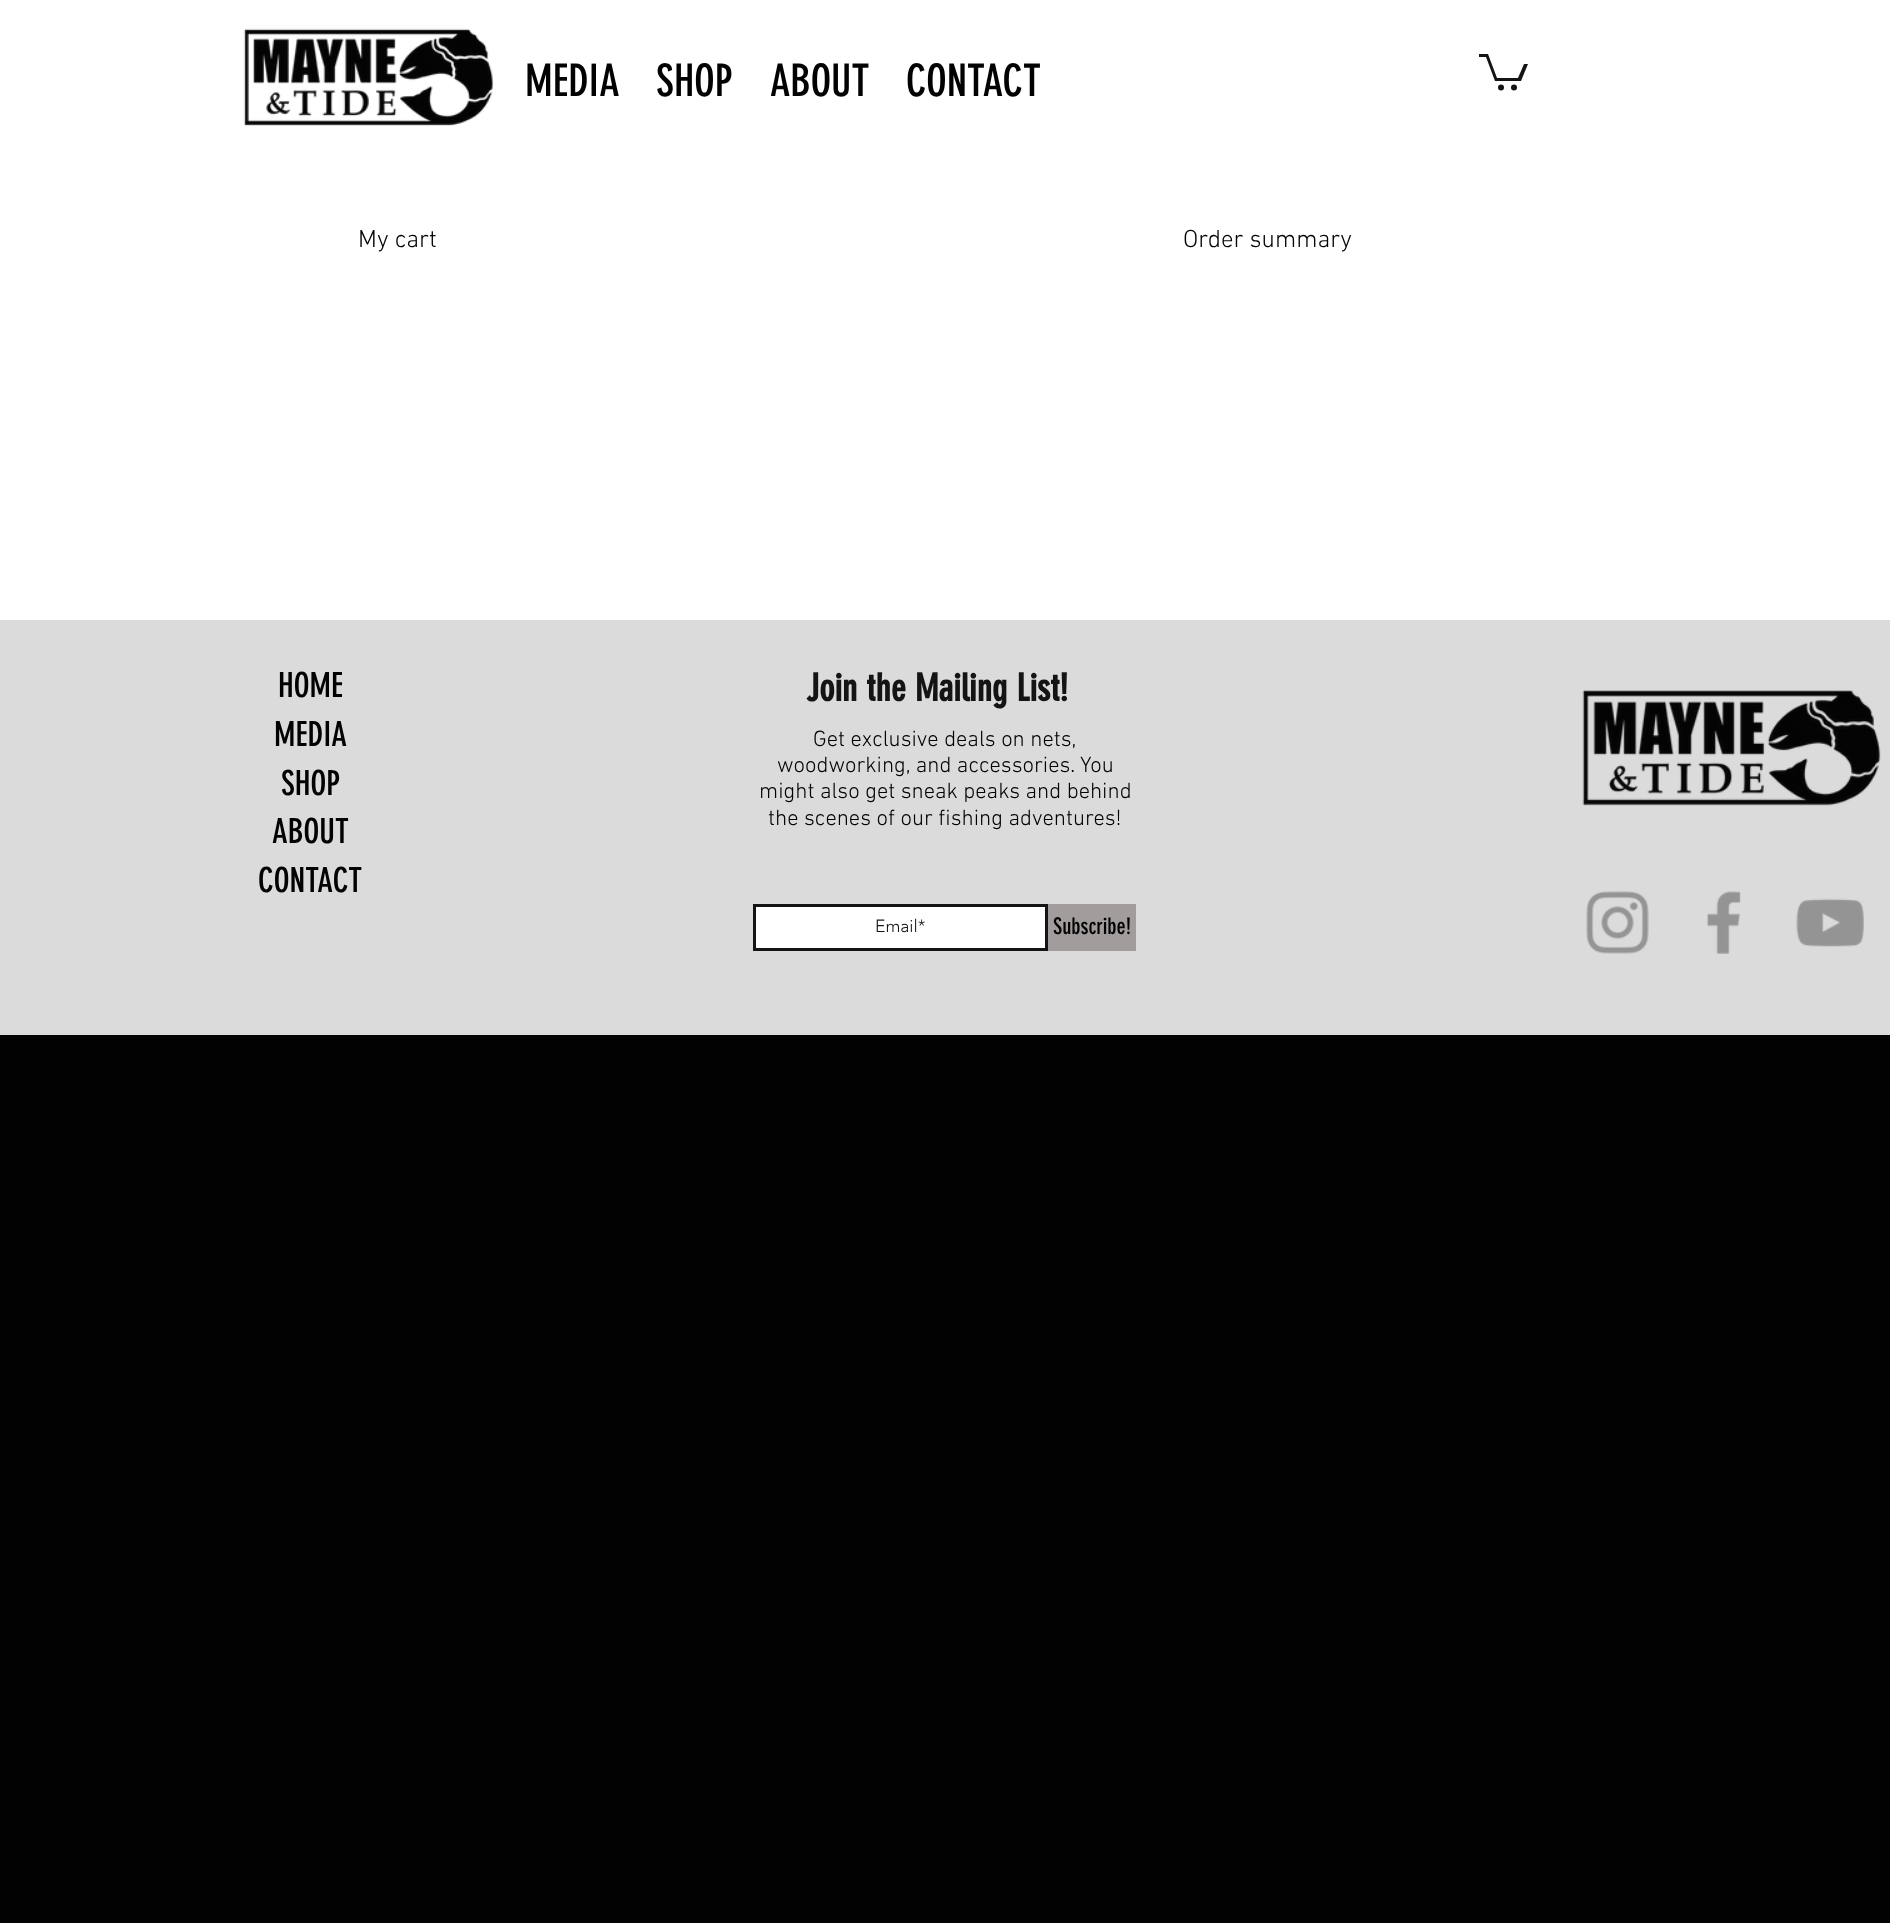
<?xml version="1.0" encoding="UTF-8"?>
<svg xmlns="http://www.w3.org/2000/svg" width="1890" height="1923">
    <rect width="100%" height="100%" fill="#020202"/>
    <rect x="0" y="0" width="1890" height="620" fill="#FFFFFF"/>
    <image x="243" y="28" width="251" height="98" href="img_01.png"/>
    <text x="525" y="96" font-family="'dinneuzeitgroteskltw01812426'" font-size="44" fill="#020202">MEDIA</text>
    <text x="656" y="96" font-family="'dinneuzeitgroteskltw01812426'" font-size="44" fill="#020202">SHOP</text>
    <text x="770" y="96" font-family="'dinneuzeitgroteskltw01812426'" font-size="44" fill="#020202">ABOUT</text>
    <text x="906" y="96" font-family="'dinneuzeitgroteskltw01812426'" font-size="44" fill="#020202">CONTACT</text>
    <path d="M 1528 64 L 1521 81 H 1495 L 1486 57 H 1479 V 54 H 1488 L 1497 78 H 1518 L 1524 64" fill="#141414"/>
    <circle cx="1514" cy="87.5" r="3" fill="#141414"/>
    <circle cx="1501" cy="87.5" r="3" fill="#141414"/>
    <text x="358" y="247" font-family="'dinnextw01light'" font-size="25" font-weight="300" fill="#020202">My cart</text>
    <text x="1183" y="247" font-family="'dinnextw01light'" font-size="25" font-weight="300" fill="#020202">Order summary</text>
    <rect x="0" y="620" width="1890" height="415" fill="#DBDBDB"/>
    <text x="278" y="697" font-family="'dinneuzeitgroteskltw01812426'" font-size="34" fill="#020202">HOME</text>
    <text x="274" y="746" font-family="'dinneuzeitgroteskltw01812426'" font-size="34" fill="#020202">MEDIA</text>
    <text x="281" y="795" font-family="'dinneuzeitgroteskltw01812426'" font-size="34" fill="#020202">SHOP</text>
    <text x="272" y="843" font-family="'dinneuzeitgroteskltw01812426'" font-size="34" fill="#020202">ABOUT</text>
    <text x="258" y="892" font-family="'dinneuzeitgroteskltw01812426'" font-size="34" fill="#020202">CONTACT</text>
    <text x="806" y="701" font-family="'dinneuzeitgroteskltw01812426'" font-size="37.5" font-weight="700" fill="#141414">Join the Mailing List!</text>
    <image x="1582" y="690" width="299" height="116" href="img_02.png"/>
    <text x="813" y="746" font-family="'dinnextw01light'" font-size="22.5" font-weight="300" fill="#020202">Get exclusive deals on nets,</text>
    <text x="777" y="772" font-family="'dinnextw01light'" font-size="22.5" font-weight="300" fill="#020202">woodworking, and accessories. You</text>
    <text x="759" y="798" font-family="'dinnextw01light'" font-size="22.5" font-weight="300" fill="#020202">might also get sneak peaks and behind</text>
    <text x="768" y="825" font-family="'dinnextw01light'" font-size="22.5" font-weight="300" fill="#020202">the scenes of our fishing adventures!</text>
    <rect x="754.5" y="905.5" width="292" height="44" fill="#FFFFFF" stroke="#141414" stroke-width="3"/>
    <text x="875" y="932" font-family="'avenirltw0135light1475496'" font-size="17.5" font-weight="300" fill="#141414">Email*</text>
    <rect x="1048" y="904" width="88" height="47" fill="#A29C9C"/>
    <text x="1053" y="934" font-family="'dinneuzeitgroteskltw01812426'" font-size="22.5" fill="#020202">Subscribe!</text>
    <image x="1586" y="891" width="63" height="63" href="img_03.png"/>
    <image x="1707" y="891" width="34" height="63" href="img_04.png"/>
    <image x="1796" y="898" width="68" height="49" href="img_05.png"/>
</svg>
